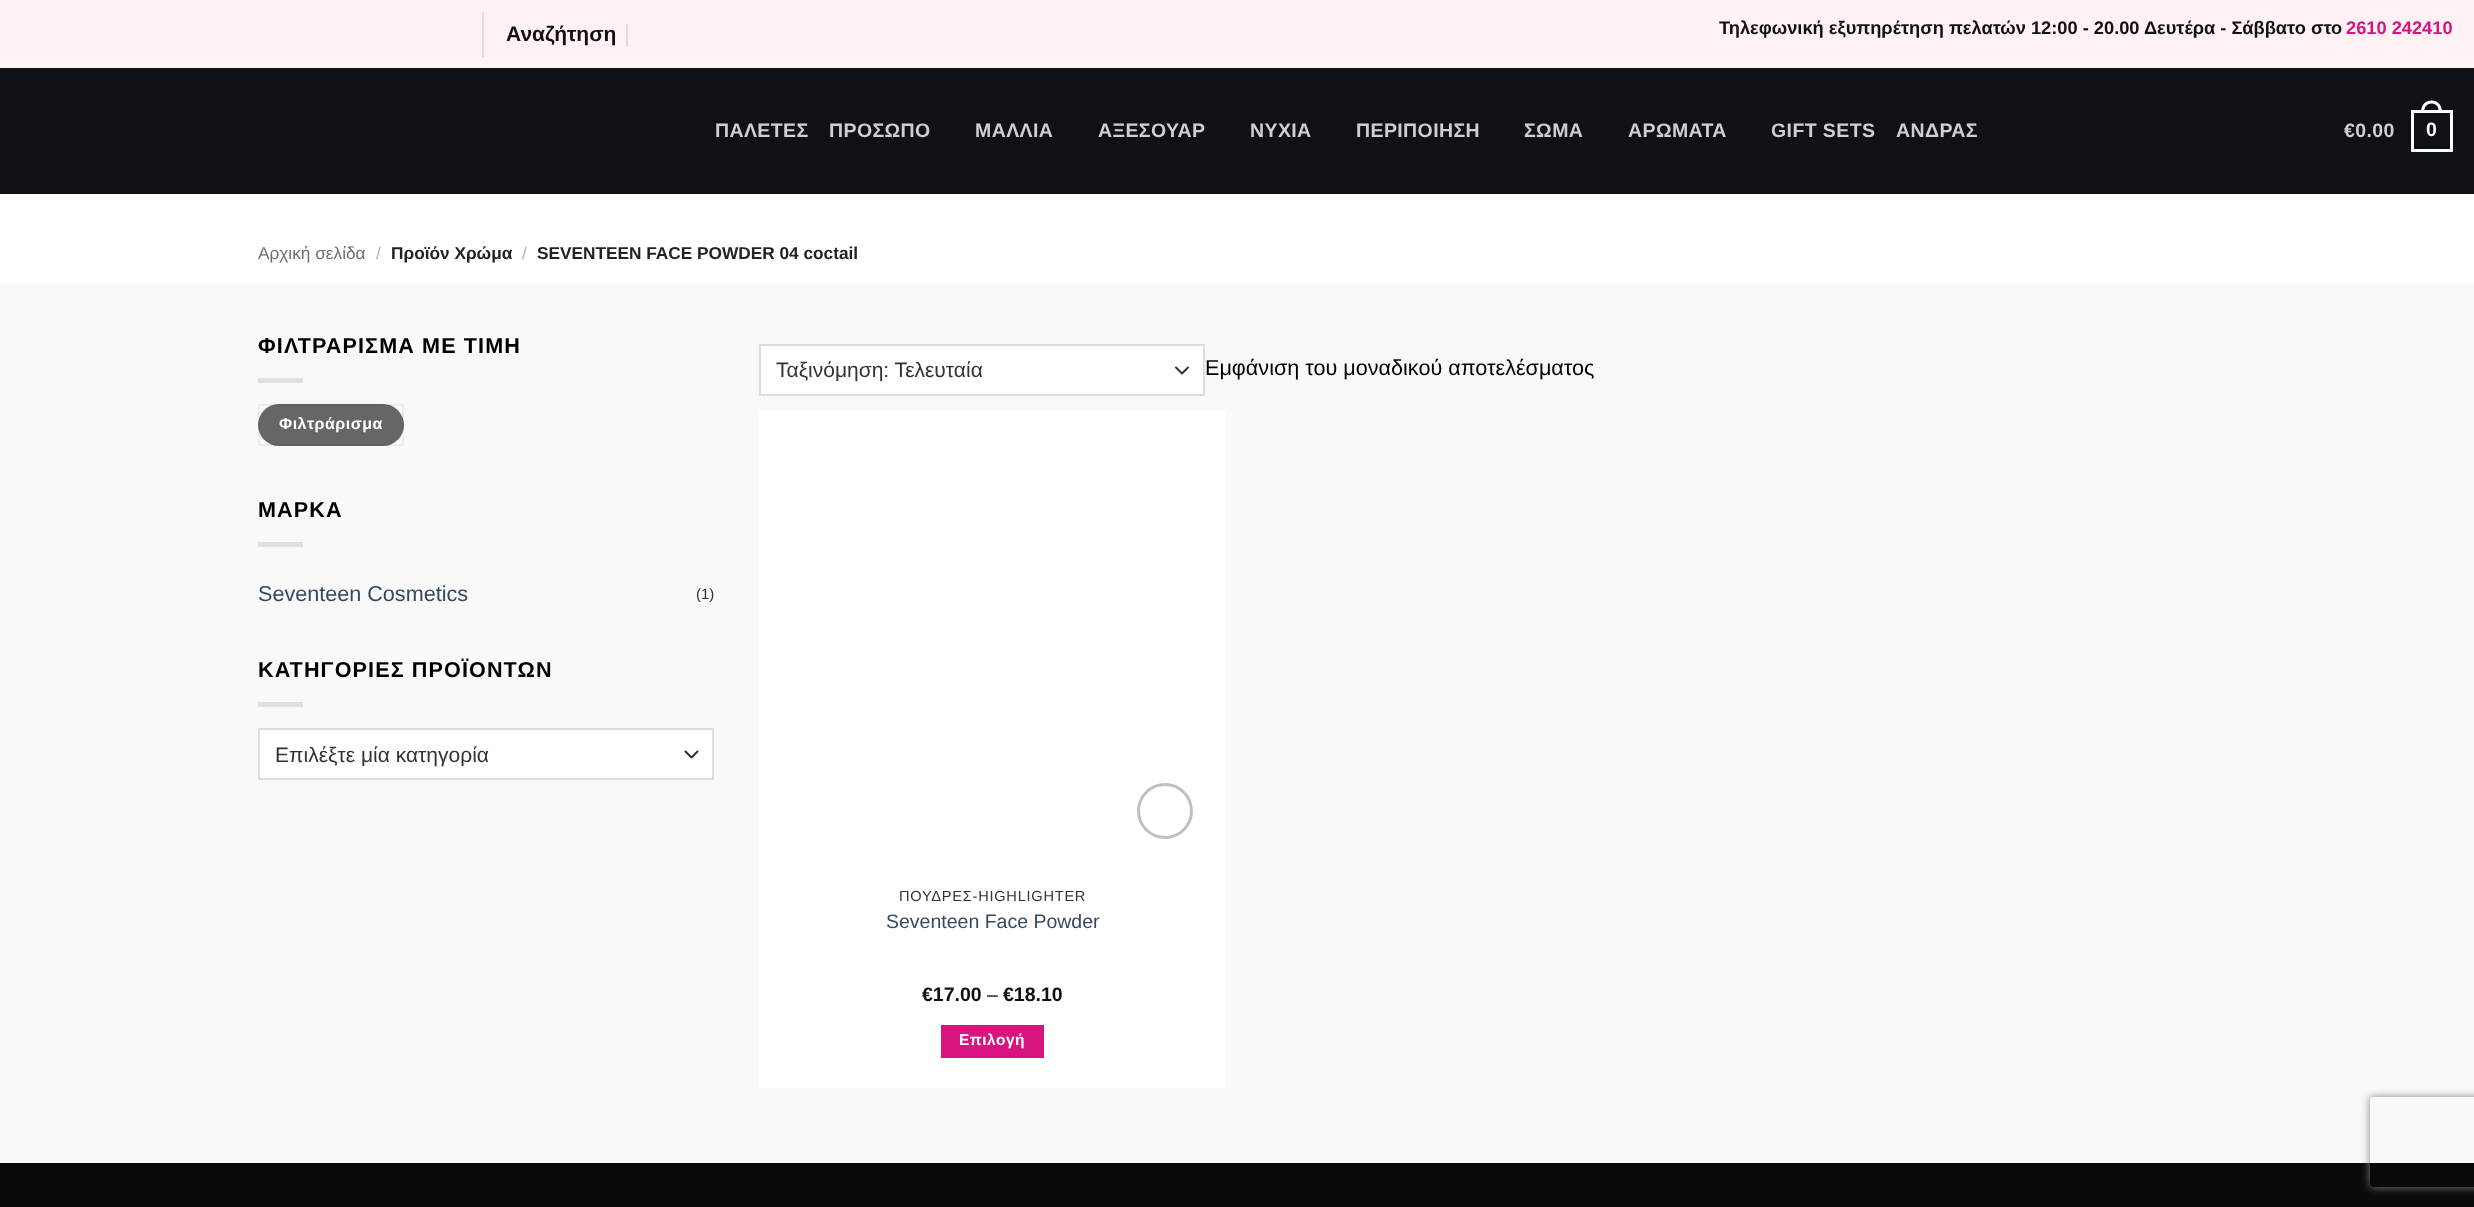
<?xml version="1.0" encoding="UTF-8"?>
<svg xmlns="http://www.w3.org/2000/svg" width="2474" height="1207">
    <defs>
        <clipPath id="clip1"><path d="M 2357 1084 H 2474 V 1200 H 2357 Z M 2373 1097 H 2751 C 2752.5 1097 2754 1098.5 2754 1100 V 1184 C 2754 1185.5 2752.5 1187 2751 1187 H 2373 C 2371.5 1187 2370 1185.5 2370 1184 V 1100 C 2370 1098.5 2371.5 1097 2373 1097 Z" clip-rule="evenodd"/></clipPath>
        <filter id="blur1" x="-50%" y="-200%" width="200%" height="500%"><feGaussianBlur stdDeviation="4"/></filter>
    </defs>
    <rect width="100%" height="100%" fill="#FFFFFF"/>
    <rect x="0" y="0" width="2474" height="68" fill="#FEF2F4"/>
    <rect x="482" y="12" width="2" height="45" fill="#E5DADC"/>
    <text x="506" y="41" font-family="Liberation Sans" font-size="21" font-weight="700" fill="#111111">Αναζήτηση</text>
    <rect x="626" y="24" width="2" height="23" fill="#E5DADC"/>
    <text x="1719" y="34" font-family="Liberation Sans" font-size="18.25" font-weight="700" fill="#111111">Τηλεφωνική εξυπηρέτηση πελατών 12:00 - 20.00 Δευτέρα - Σάββατο στο</text>
    <text x="2346" y="34" font-family="Liberation Sans" font-size="18.25" font-weight="700" fill="#D91480">2610 242410</text>
    <rect x="0" y="68" width="2474" height="126" fill="#0E1116"/>
    <text x="715" y="137" font-family="Liberation Sans" font-size="19.5" font-weight="700" letter-spacing="0.4" fill="#CFCFD0">ΠΑΛΕΤΕΣ</text>
    <text x="829" y="137" font-family="Liberation Sans" font-size="19.5" font-weight="700" letter-spacing="0.4" fill="#CFCFD0">ΠΡΟΣΩΠΟ</text>
    <text x="975" y="137" font-family="Liberation Sans" font-size="19.5" font-weight="700" letter-spacing="0.4" fill="#CFCFD0">ΜΑΛΛΙΑ</text>
    <text x="1098" y="137" font-family="Liberation Sans" font-size="19.5" font-weight="700" letter-spacing="0.4" fill="#CFCFD0">ΑΞΕΣΟΥΑΡ</text>
    <text x="1250" y="137" font-family="Liberation Sans" font-size="19.5" font-weight="700" letter-spacing="0.4" fill="#CFCFD0">NΥΧΙΑ</text>
    <text x="1356" y="137" font-family="Liberation Sans" font-size="19.5" font-weight="700" letter-spacing="0.4" fill="#CFCFD0">ΠΕΡΙΠΟΙΗΣΗ</text>
    <text x="1524" y="137" font-family="Liberation Sans" font-size="19.5" font-weight="700" letter-spacing="0.4" fill="#CFCFD0">ΣΩΜΑ</text>
    <text x="1628" y="137" font-family="Liberation Sans" font-size="19.5" font-weight="700" letter-spacing="0.4" fill="#CFCFD0">ΑΡΩΜΑΤΑ</text>
    <text x="1771" y="137" font-family="Liberation Sans" font-size="19.5" font-weight="700" letter-spacing="0.4" fill="#CFCFD0">GIFT SETS</text>
    <text x="1896" y="137" font-family="Liberation Sans" font-size="19.5" font-weight="700" letter-spacing="0.4" fill="#CFCFD0">ΑΝΔΡΑΣ</text>
    <text x="2344" y="137" font-family="Liberation Sans" font-size="19.5" font-weight="700" letter-spacing="0.4" fill="#CFCFD0">€0.00</text>
    <rect x="2412.5" y="111.5" width="39" height="39" fill="none" stroke="#FFFFFF" stroke-width="3"/>
    <path d="M 2431.5 100.5 C 2438.5 100.5 2442 106 2442 112.5 H 2421 C 2421 106 2424.5 100.5 2431.5 100.5 Z M 2431.5 103.5 C 2437 103.5 2439 108 2439 112.5 H 2424 C 2424 108 2426 103.5 2431.5 103.5 Z" fill="#FFFFFF" fill-rule="evenodd"/>
    <text x="2426" y="136" font-family="Liberation Sans" font-size="19.5" font-weight="700" letter-spacing="0.4" fill="#FFFFFF">0</text>
    <text x="258" y="259" font-family="Liberation Sans" font-size="17.25" fill="#6E6E6E">Αρχική σελίδα</text>
    <text x="376" y="259" font-family="Liberation Sans" font-size="17.25" fill="#B2B2B2">/</text>
    <text x="391" y="259" font-family="Liberation Sans" font-size="17.25" font-weight="700" fill="#222222">Προϊόν Χρώμα</text>
    <text x="522" y="259" font-family="Liberation Sans" font-size="17.25" fill="#B2B2B2">/</text>
    <text x="537" y="259" font-family="Liberation Sans" font-size="17.25" font-weight="700" fill="#222222">SEVENTEEN FACE POWDER 04 coctail</text>
    <rect x="0" y="284" width="2474" height="879" fill="#F9F9F9"/>
    <text x="258" y="353" font-family="Liberation Sans" font-size="21.6" font-weight="700" letter-spacing="1.1" fill="#000000">ΦΙΛΤΡΑΡΙΣΜΑ ΜΕ ΤΙΜΗ</text>
    <rect x="258" y="378" width="45" height="5" fill="#E0E0E0"/>
    <rect x="258" y="404" width="146" height="42" rx="21" fill="#666666"/>
    <rect x="259" y="405" width="144" height="40" fill="none" stroke="#000000" stroke-opacity="0.05" stroke-width="2"/>
    <text x="279" y="429" font-family="Liberation Sans" font-size="16" font-weight="700" letter-spacing="0.5" fill="#FFFFFF">Φιλτράρισμα</text>
    <text x="258" y="517" font-family="Liberation Sans" font-size="21.6" font-weight="700" letter-spacing="1.1" fill="#000000">ΜΑΡΚΑ</text>
    <rect x="258" y="542" width="45" height="5" fill="#E0E0E0"/>
    <text x="258" y="601" font-family="Liberation Sans" font-size="21.6" fill="#334862">Seventeen Cosmetics</text>
    <text x="696" y="599" font-family="Liberation Sans" font-size="15" fill="#333333">(1)</text>
    <text x="258" y="677" font-family="Liberation Sans" font-size="21.6" font-weight="700" letter-spacing="1.1" fill="#000000">ΚΑΤΗΓΟΡΙΕΣ ΠΡΟΪΟΝΤΩΝ</text>
    <rect x="258" y="702" width="45" height="5" fill="#E0E0E0"/>
    <rect x="260" y="730" width="452" height="48" fill="#FFFFFF"/>
    <path d="M 685.5 751.5 L 691.5 757.5 L 697.5 751.5" fill="none" stroke="#333333" stroke-width="2" stroke-linecap="round" stroke-linejoin="round"/>
    <rect x="259" y="729" width="454" height="50" fill="none" stroke="#DDDDDD" stroke-width="2"/>
    <text x="275" y="762" font-family="Liberation Sans" font-size="21" fill="#333333">Επιλέξτε μία κατηγορία</text>
    <rect x="761" y="346" width="442" height="48" fill="#FFFFFF"/>
    <path d="M 1176 367.5 L 1182 373.5 L 1188 367.5" fill="none" stroke="#333333" stroke-width="2" stroke-linecap="round" stroke-linejoin="round"/>
    <rect x="760" y="345" width="444" height="50" fill="none" stroke="#DDDDDD" stroke-width="2"/>
    <text x="776" y="377" font-family="Liberation Sans" font-size="21" fill="#333333">Ταξινόμηση: Τελευταία</text>
    <text x="1205" y="375" font-family="Liberation Sans" font-size="21.6" fill="#000000">Εμφάνιση του μοναδικού αποτελέσματος</text>
    <rect x="759" y="411" width="467" height="677" fill="#FFFFFF"/>
    <circle cx="1165" cy="811" r="26.5" fill="none" stroke="#C0C0C0" stroke-width="3"/>
    <text x="899" y="901" font-family="Liberation Sans" font-size="14.6" letter-spacing="0.75" fill="#333333">ΠΟΥΔΡΕΣ-HIGHLIGHTER</text>
    <text x="886" y="928" font-family="Liberation Sans" font-size="19.5" fill="#334862">Seventeen Face Powder</text>
    <text x="922" y="1001" font-family="Liberation Sans" font-size="19.5" font-weight="700" fill="#111111">€17.00</text>
    <text x="987" y="1001" font-family="Liberation Sans" font-size="19.5" fill="#000000">–</text>
    <text x="1003" y="1001" font-family="Liberation Sans" font-size="19.5" font-weight="700" fill="#111111">€18.10</text>
    <rect x="941" y="1025" width="103" height="33" fill="#D91480"/>
    <text x="959" y="1045" font-family="Liberation Sans" font-size="15.5" font-weight="700" letter-spacing="0.5" fill="#FFFFFF">Επιλογή</text>
    <rect x="0" y="1163" width="2474" height="44" fill="#0A0A0A"/>
    <g clip-path="url(#clip1)">
        <rect x="2370" y="1097" width="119" height="90" rx="3" fill="#808080" filter="url(#blur1)"/>
    </g>
</svg>
